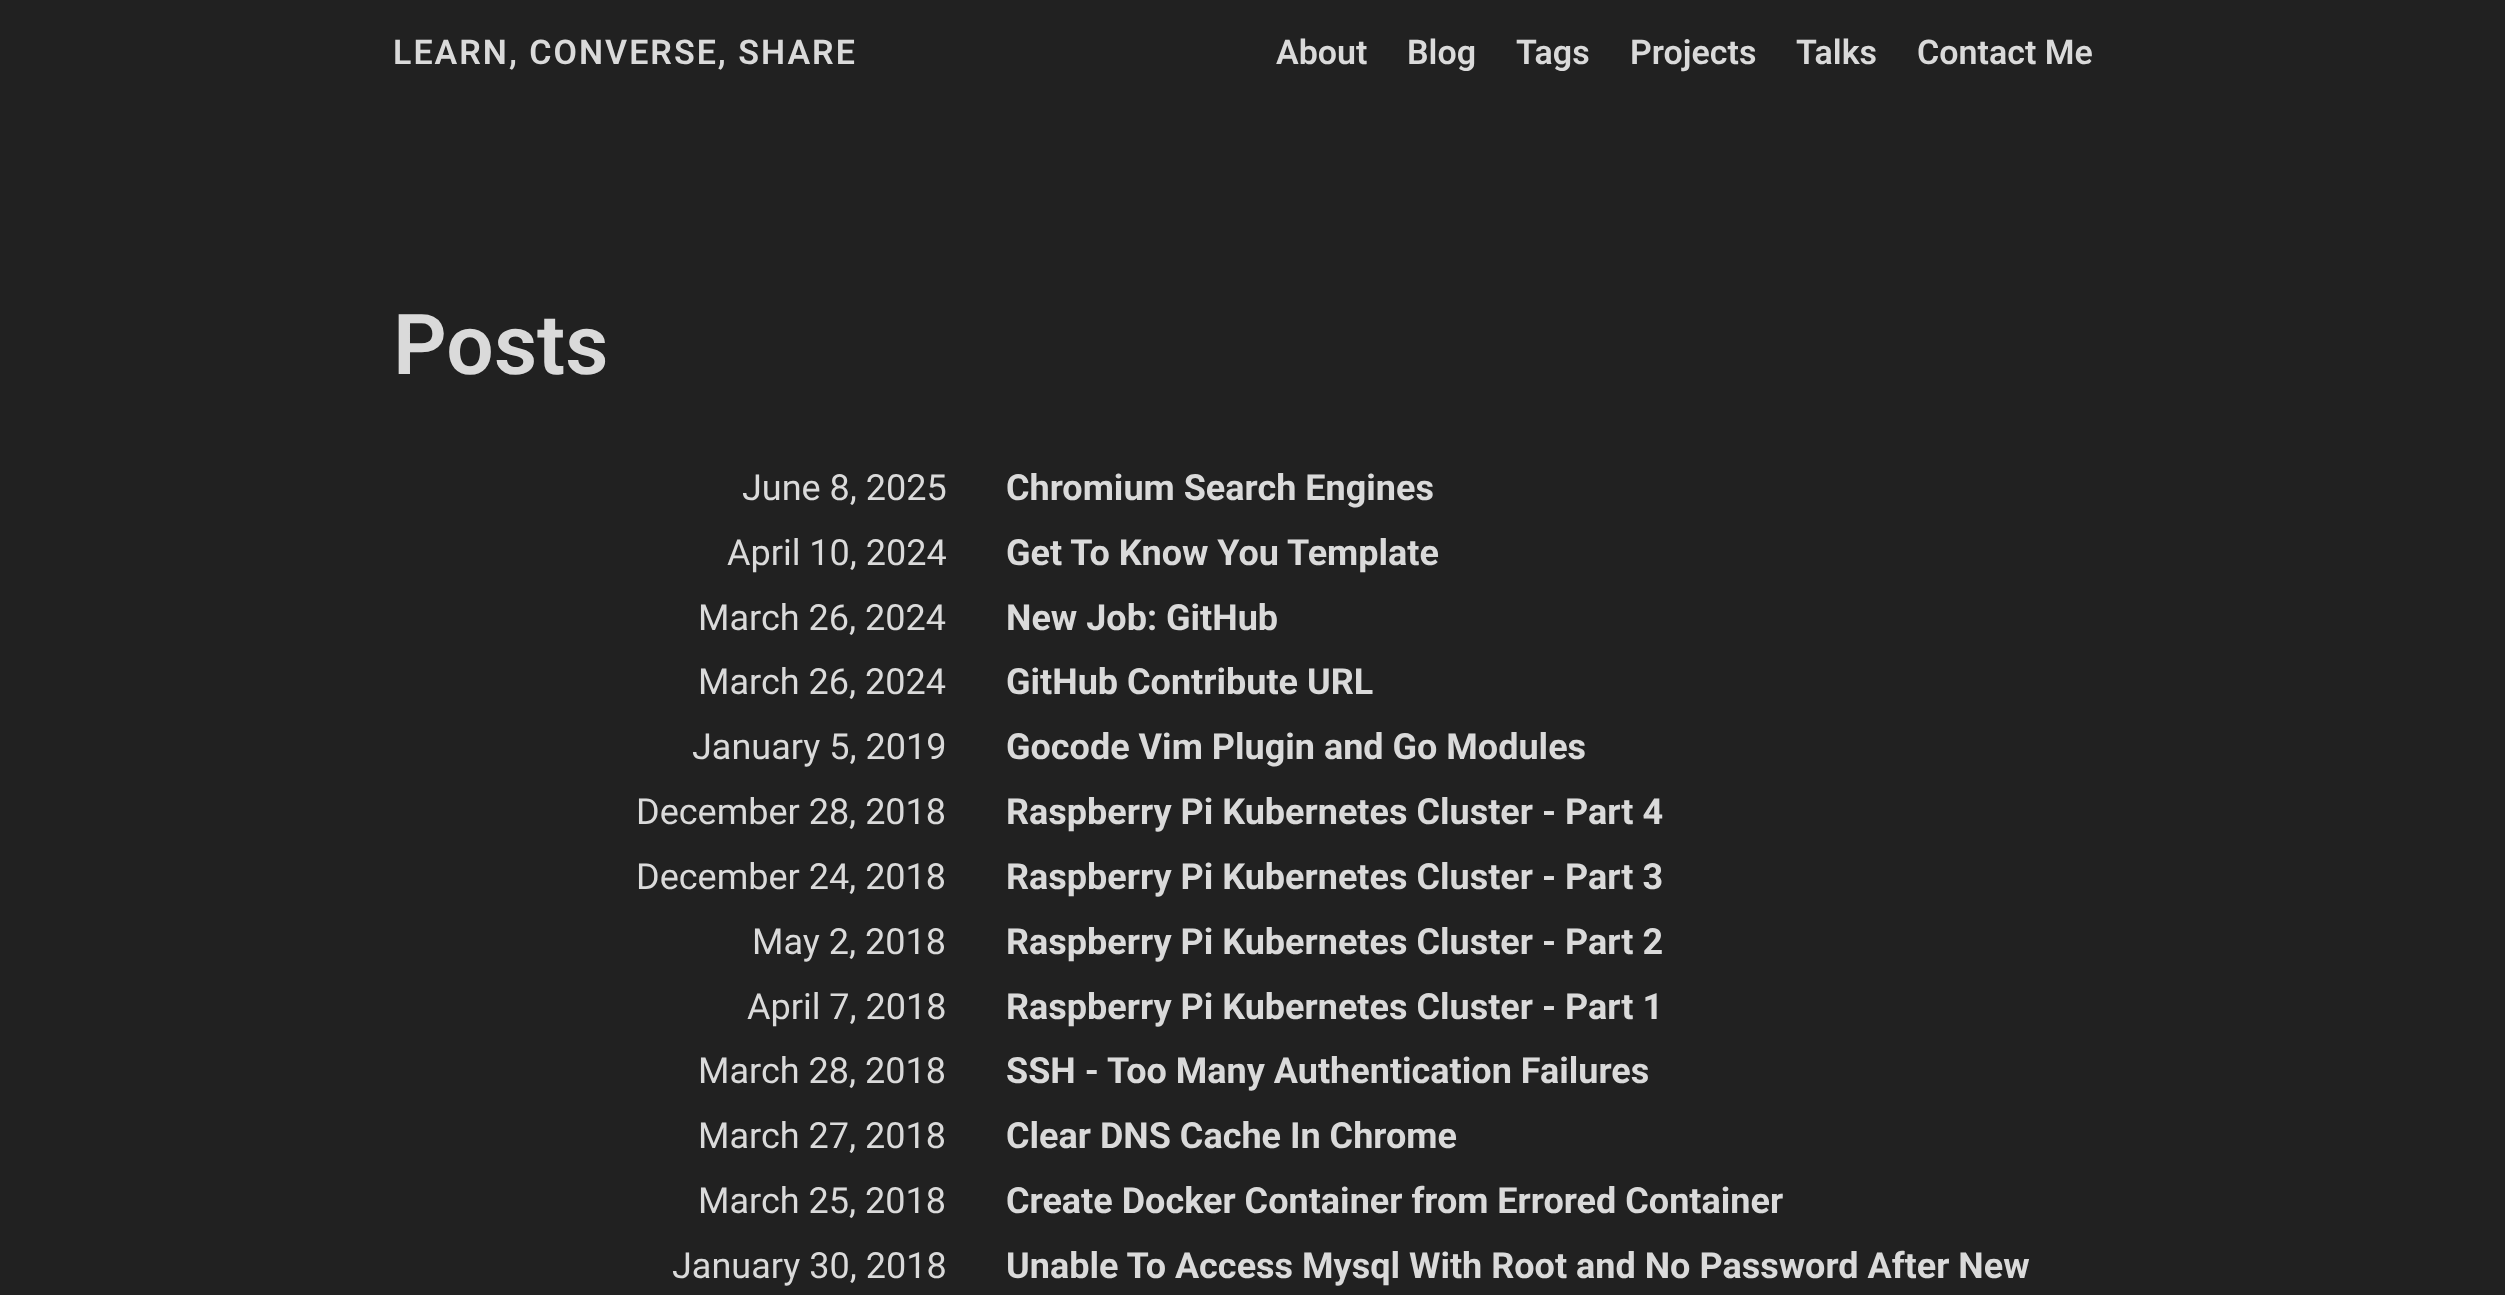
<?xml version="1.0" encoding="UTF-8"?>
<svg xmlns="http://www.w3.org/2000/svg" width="2505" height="1295">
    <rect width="100%" height="100%" fill="#212121"/>
    <text x="393" y="64" font-family="Roboto" font-size="34" font-weight="600" letter-spacing="2" fill="#DADADA">LEARN, CONVERSE, SHARE</text>
    <text x="1276" y="64" font-family="Roboto" font-size="34" font-weight="600" fill="#DADADA">About</text>
    <text x="1407" y="64" font-family="Roboto" font-size="34" font-weight="600" fill="#DADADA">Blog</text>
    <text x="1516" y="64" font-family="Roboto" font-size="34" font-weight="600" fill="#DADADA">Tags</text>
    <text x="1630" y="64" font-family="Roboto" font-size="34" font-weight="600" fill="#DADADA">Projects</text>
    <text x="1796" y="64" font-family="Roboto" font-size="34" font-weight="600" fill="#DADADA">Talks</text>
    <text x="1917" y="64" font-family="Roboto" font-size="34" font-weight="600" fill="#DADADA">Contact Me</text>
    <text x="393" y="374" font-family="Roboto" font-size="84" font-weight="600" fill="#DADADA">Posts</text>
    <text x="742" y="500" font-family="Roboto" font-size="36" fill="#DADADA">June 8, 2025</text>
    <text x="1006" y="500" font-family="Roboto" font-size="36" font-weight="700" fill="#DADADA">Chromium Search Engines</text>
    <text x="727" y="565" font-family="Roboto" font-size="36" fill="#DADADA">April 10, 2024</text>
    <text x="1006" y="565" font-family="Roboto" font-size="36" font-weight="700" fill="#DADADA">Get To Know You Template</text>
    <text x="698" y="630" font-family="Roboto" font-size="36" fill="#DADADA">March 26, 2024</text>
    <text x="1006" y="630" font-family="Roboto" font-size="36" font-weight="700" fill="#DADADA">New Job: GitHub</text>
    <text x="698" y="694" font-family="Roboto" font-size="36" fill="#DADADA">March 26, 2024</text>
    <text x="1006" y="694" font-family="Roboto" font-size="36" font-weight="700" fill="#DADADA">GitHub Contribute URL</text>
    <text x="692" y="759" font-family="Roboto" font-size="36" fill="#DADADA">January 5, 2019</text>
    <text x="1006" y="759" font-family="Roboto" font-size="36" font-weight="700" fill="#DADADA">Gocode Vim Plugin and Go Modules</text>
    <text x="636" y="824" font-family="Roboto" font-size="36" fill="#DADADA">December 28, 2018</text>
    <text x="1006" y="824" font-family="Roboto" font-size="36" font-weight="700" fill="#DADADA">Raspberry Pi Kubernetes Cluster - Part 4</text>
    <text x="636" y="889" font-family="Roboto" font-size="36" fill="#DADADA">December 24, 2018</text>
    <text x="1006" y="889" font-family="Roboto" font-size="36" font-weight="700" fill="#DADADA">Raspberry Pi Kubernetes Cluster - Part 3</text>
    <text x="752" y="954" font-family="Roboto" font-size="36" fill="#DADADA">May 2, 2018</text>
    <text x="1006" y="954" font-family="Roboto" font-size="36" font-weight="700" fill="#DADADA">Raspberry Pi Kubernetes Cluster - Part 2</text>
    <text x="747" y="1019" font-family="Roboto" font-size="36" fill="#DADADA">April 7, 2018</text>
    <text x="1006" y="1019" font-family="Roboto" font-size="36" font-weight="700" fill="#DADADA">Raspberry Pi Kubernetes Cluster - Part 1</text>
    <text x="698" y="1083" font-family="Roboto" font-size="36" fill="#DADADA">March 28, 2018</text>
    <text x="1006" y="1083" font-family="Roboto" font-size="36" font-weight="700" fill="#DADADA">SSH - Too Many Authentication Failures</text>
    <text x="698" y="1148" font-family="Roboto" font-size="36" fill="#DADADA">March 27, 2018</text>
    <text x="1006" y="1148" font-family="Roboto" font-size="36" font-weight="700" fill="#DADADA">Clear DNS Cache In Chrome</text>
    <text x="698" y="1213" font-family="Roboto" font-size="36" fill="#DADADA">March 25, 2018</text>
    <text x="1006" y="1213" font-family="Roboto" font-size="36" font-weight="700" fill="#DADADA">Create Docker Container from Errored Container</text>
    <text x="672" y="1278" font-family="Roboto" font-size="36" fill="#DADADA">January 30, 2018</text>
    <text x="1006" y="1278" font-family="Roboto" font-size="36" font-weight="700" fill="#DADADA">Unable To Access Mysql With Root and No Password After New</text>
</svg>
